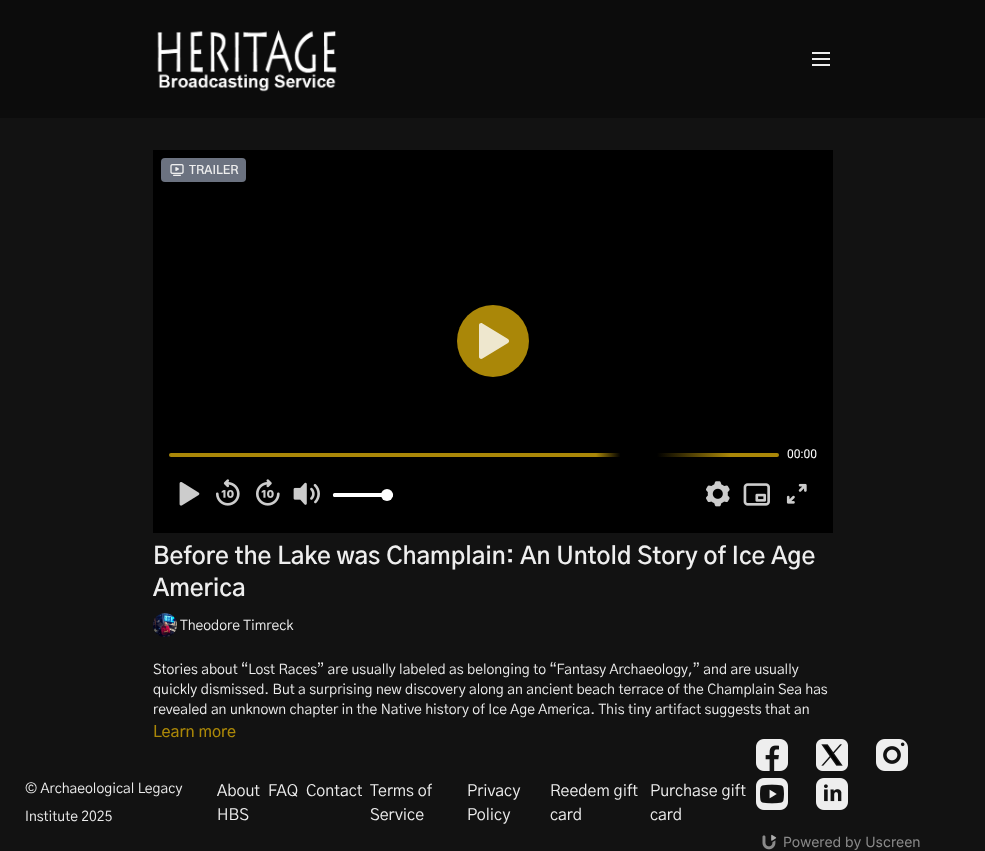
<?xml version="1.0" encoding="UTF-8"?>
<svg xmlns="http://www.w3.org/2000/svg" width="985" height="851">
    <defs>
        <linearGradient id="g1" gradientUnits="userSpaceOnUse" x1="169" y1="457" x2="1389" y2="457"><stop offset="0.35" stop-color="#AA8708"/><stop offset="0.37" stop-color="#000000"/><stop offset="0.4" stop-color="#000000"/><stop offset="0.46" stop-color="#AA8708"/><stop offset="1" stop-color="#AA8708"/></linearGradient>
    </defs>
    <rect width="100%" height="100%" fill="#121212"/>
    <rect x="0" y="0" width="985" height="118" fill="#0C0C0C"/>
    <image x="157" y="30" width="180" height="62" href="img_01.png"/>
    <image x="812" y="52" width="18" height="14" href="img_02.png"/>
    <rect x="153" y="150" width="680" height="383" fill="#000000"/>
    <rect x="161" y="158" width="85" height="24" rx="4" fill="#6B7280"/>
    <image x="170" y="164" width="14" height="12" href="img_03.png"/>
    <text x="189" y="174" font-family="'Gothic A1'" font-size="12" font-weight="600" fill="#EEEEEE">TRAILER</text>
    <circle cx="493" cy="341" r="36" fill="#AA8708"/>
    <path d="M 482.5 323.5 C 481 322.5 479 323.5 479 325 V 357 C 479 358.5 481 359.5 482.5 358.5 L 508 343 C 509.5 342 509.5 340 508 339 Z" fill="#EEE7CE"/>
    <rect x="169" y="453" width="610" height="4" rx="2" fill="url(#g1)"/>
    <text x="787" y="458" font-family="Roboto" font-size="12" fill="#FFFFFF">00:00</text>
    <image x="179" y="482" width="21" height="24" href="img_04.png"/>
    <image x="216" y="479" width="24" height="27" href="img_05.png"/>
    <image x="256" y="479" width="24" height="27" href="img_06.png"/>
    <image x="293" y="482" width="27" height="23" href="img_07.png"/>
    <rect x="333" y="493" width="60" height="4" rx="1.5" fill="#FFFFFF"/>
    <circle cx="387" cy="495" r="6" fill="#FFFFFF"/>
    <image x="706" y="481" width="24" height="26" href="img_08.png"/>
    <image x="743" y="483" width="27" height="23" href="img_09.png"/>
    <image x="786" y="483" width="21" height="21" href="img_10.png"/>
    <text font-family="'Gothic A1'" font-size="24" font-weight="600" fill="#EEEEEE">
        <tspan x="153" y="564">Before the Lake was Champlain: An Untold Story of Ice Age</tspan>
        <tspan x="153" y="596">America</tspan>
    </text>
    <image x="153" y="613" width="24" height="24" href="img_11.png"/>
    <text x="180" y="630" font-family="'Gothic A1'" font-size="14" fill="#EEEEEE">Theodore Timreck</text>
    <text font-family="'Gothic A1'" font-size="14" fill="#EEEEEE">
        <tspan x="153" y="674">Stories about “Lost Races” are usually labeled as belonging to “Fantasy Archaeology,” and are usually</tspan>
        <tspan x="153" y="694">quickly dismissed. But a surprising new discovery along an ancient beach terrace of the Champlain Sea has</tspan>
        <tspan x="153" y="714">revealed an unknown chapter in the Native history of Ice Age America. This tiny artifact suggests that an</tspan>
    </text>
    <text x="153" y="737" font-family="'Gothic A1'" font-size="16" font-weight="500" fill="#AA8708">Learn more</text>
    <text x="25" y="793" font-family="'Gothic A1'" font-size="14" fill="#EEEEEE">© Archaeological Legacy</text>
    <text x="25" y="821" font-family="'Gothic A1'" font-size="14" fill="#EEEEEE">Institute 2025</text>
    <text font-family="'Gothic A1'" font-size="16" fill="#EEEEEE">
        <tspan x="217" y="796">About</tspan>
        <tspan x="217" y="820">HBS</tspan>
    </text>
    <text x="268" y="796" font-family="'Gothic A1'" font-size="16" fill="#EEEEEE">FAQ</text>
    <text x="306" y="796" font-family="'Gothic A1'" font-size="16" fill="#EEEEEE">Contact</text>
    <text font-family="'Gothic A1'" font-size="16" fill="#EEEEEE">
        <tspan x="370" y="796">Terms of</tspan>
        <tspan x="370" y="820">Service</tspan>
    </text>
    <text font-family="'Gothic A1'" font-size="16" fill="#EEEEEE">
        <tspan x="467" y="796">Privacy</tspan>
        <tspan x="467" y="820">Policy</tspan>
    </text>
    <text font-family="'Gothic A1'" font-size="16" fill="#EEEEEE">
        <tspan x="550" y="796">Reedem gift</tspan>
        <tspan x="550" y="820">card</tspan>
    </text>
    <text font-family="'Gothic A1'" font-size="16" fill="#EEEEEE">
        <tspan x="650" y="796">Purchase gift</tspan>
        <tspan x="650" y="820">card</tspan>
    </text>
    <image x="756" y="739" width="32" height="32" href="img_12.png"/>
    <image x="816" y="739" width="32" height="32" href="img_13.png"/>
    <image x="876" y="739" width="32" height="32" href="img_14.png"/>
    <image x="756" y="778" width="32" height="32" href="img_15.png"/>
    <image x="816" y="778" width="32" height="32" href="img_16.png"/>
    <image x="762" y="834" width="15" height="16" href="img_17.png"/>
    <text x="783" y="847" font-family="Inter" font-size="14" fill="#8A8A8A">Powered by Uscreen</text>
</svg>
